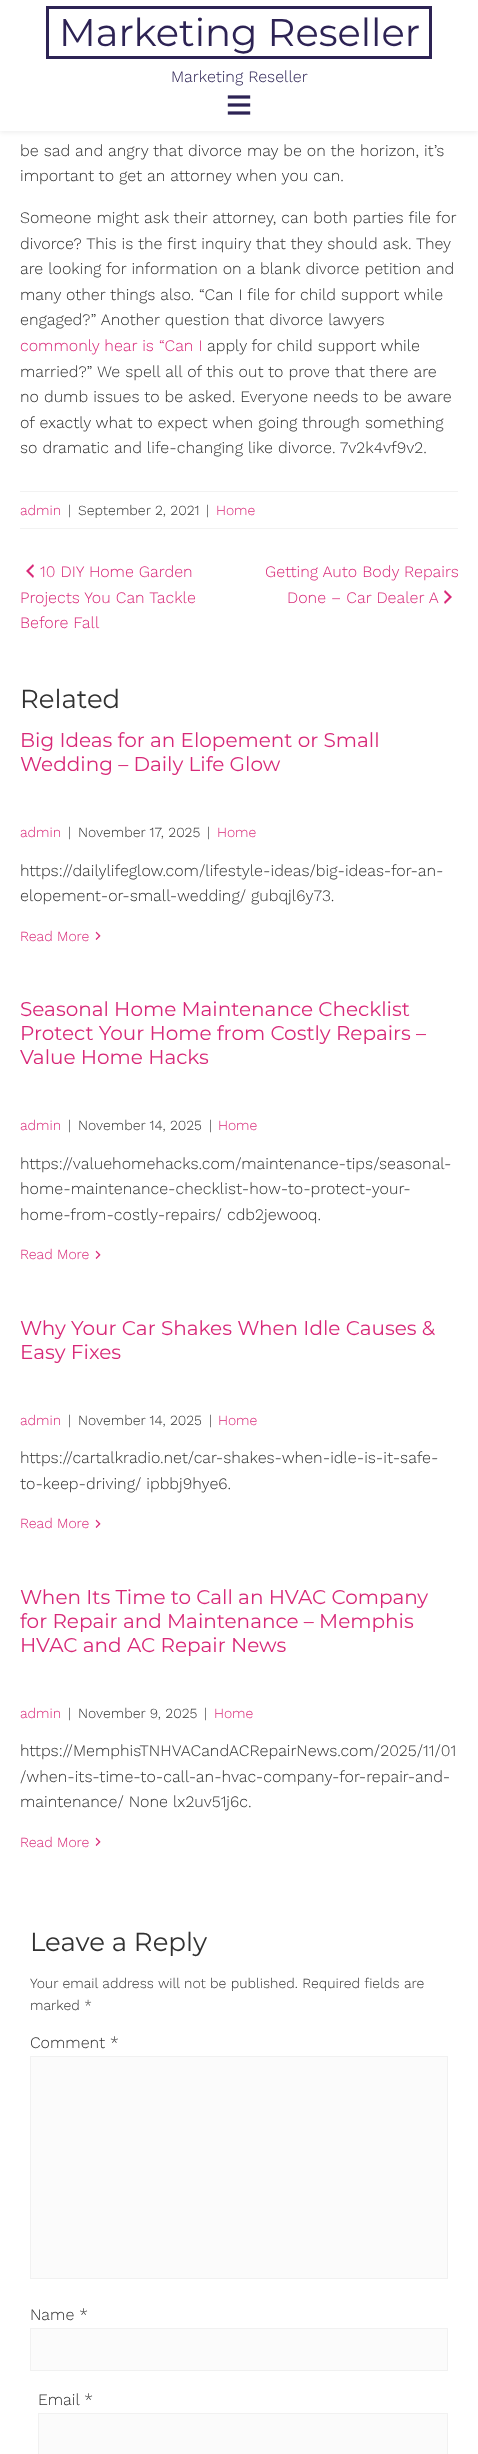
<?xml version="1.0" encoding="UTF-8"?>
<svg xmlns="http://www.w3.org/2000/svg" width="478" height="2454">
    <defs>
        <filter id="blur1" x="-50%" y="-200%" width="200%" height="500%"><feGaussianBlur stdDeviation="2"/></filter>
    </defs>
    <rect width="100%" height="100%" fill="#FFFFFF"/>
    <rect x="0" y="2" width="478" height="131" fill="#000000" fill-opacity="0.06" filter="url(#blur1)"/>
    <rect x="0" y="0" width="478" height="131" fill="#FFFFFF"/>
    <rect x="47.5" y="7.5" width="383" height="50" fill="none" stroke="#2D2354" stroke-width="3"/>
    <text x="59" y="46" font-family="Montserrat" font-size="38.5" fill="#2D2354">Marketing Reseller</text>
    <text x="171" y="82" font-family="Work Sans" font-size="16" font-weight="300" fill="#2D2354">Marketing Reseller</text>
    <image x="227" y="95" width="24" height="20" href="img_01.png"/>
    <text font-family="Work Sans" font-size="16" font-weight="300" fill="#313131">
        <tspan x="20" y="156">be sad and angry that divorce may be on the horizon, it’s</tspan>
        <tspan x="20" y="181">important to get an attorney when you can.</tspan>
    </text>
    <text font-family="Work Sans" font-size="16" font-weight="300" fill="#313131">
        <tspan x="20" y="223">Someone might ask their attorney, can both parties file for</tspan>
        <tspan x="20" y="249">divorce? This is the first inquiry that they should ask. They</tspan>
        <tspan x="20" y="274">are looking for information on a blank divorce petition and</tspan>
        <tspan x="20" y="300">many other things also. “Can I file for child support while</tspan>
        <tspan x="20" y="325">engaged?” Another question that divorce lawyers</tspan>
    </text>
    <text x="20" y="351" font-family="Work Sans" font-size="16" font-weight="300" fill="#D82978">commonly hear is “Can I</text>
    <text x="207" y="351" font-family="Work Sans" font-size="16" font-weight="300" fill="#313131">apply for child support while</text>
    <text font-family="Work Sans" font-size="16" font-weight="300" fill="#313131">
        <tspan x="20" y="377">married?” We spell all of this out to prove that there are</tspan>
        <tspan x="20" y="402">no dumb issues to be asked. Everyone needs to be aware</tspan>
        <tspan x="20" y="428">of exactly what to expect when going through something</tspan>
        <tspan x="20" y="453">so dramatic and life-changing like divorce. 7v2k4vf9v2.</tspan>
    </text>
    <rect x="20" y="491" width="438" height="1" fill="#F2F2F2"/>
    <rect x="20" y="528" width="438" height="1" fill="#F2F2F2"/>
    <text x="20" y="515" font-family="Work Sans" font-size="14" font-weight="300" fill="#D82978">admin</text>
    <text x="68" y="515" font-family="Work Sans" font-size="14" font-weight="300" fill="#313131">|</text>
    <text x="78" y="515" font-family="Work Sans" font-size="14" font-weight="300" fill="#313131">September 2, 2021</text>
    <text x="206" y="515" font-family="Work Sans" font-size="14" font-weight="300" fill="#313131">|</text>
    <text x="216" y="515" font-family="Work Sans" font-size="14" font-weight="300" fill="#D82978">Home</text>
    <image x="26" y="564" width="8" height="14" href="img_02.png"/>
    <text x="40" y="577" font-family="Work Sans" font-size="16" font-weight="300" fill="#D82978">10 DIY Home Garden</text>
    <text font-family="Work Sans" font-size="16" font-weight="300" fill="#D82978">
        <tspan x="20" y="603">Projects You Can Tackle</tspan>
        <tspan x="20" y="628">Before Fall</tspan>
    </text>
    <text x="265" y="577" font-family="Work Sans" font-size="16" font-weight="300" fill="#D82978">Getting Auto Body Repairs</text>
    <text x="287" y="603" font-family="Work Sans" font-size="16" font-weight="300" fill="#D82978">Done – Car Dealer A</text>
    <image x="444" y="590" width="8" height="14" href="img_03.png"/>
    <text x="20" y="708" font-family="Montserrat" font-size="26" fill="#313131">Related</text>
    <text font-family="Montserrat" font-size="20" fill="#D82978">
        <tspan x="20" y="747">Big Ideas for an Elopement or Small</tspan>
        <tspan x="20" y="771">Wedding – Daily Life Glow</tspan>
    </text>
    <text x="20" y="837" font-family="Work Sans" font-size="14" font-weight="300" fill="#D82978">admin</text>
    <text x="68" y="837" font-family="Work Sans" font-size="14" font-weight="300" fill="#313131">|</text>
    <text x="78" y="837" font-family="Work Sans" font-size="14" font-weight="300" fill="#313131">November 17, 2025</text>
    <text x="207" y="837" font-family="Work Sans" font-size="14" font-weight="300" fill="#313131">|</text>
    <text x="217" y="837" font-family="Work Sans" font-size="14" font-weight="300" fill="#D82978">Home</text>
    <text font-family="Work Sans" font-size="16" font-weight="300" fill="#313131">
        <tspan x="20" y="876">https://dailylifeglow.com/lifestyle-ideas/big-ideas-for-an-</tspan>
        <tspan x="20" y="901">elopement-or-small-wedding/ gubqjl6y73.</tspan>
    </text>
    <text x="20" y="941" font-family="Work Sans" font-size="14" font-weight="300" fill="#D82978">Read More</text>
    <image x="95" y="931" width="6" height="9" href="img_04.png"/>
    <text font-family="Montserrat" font-size="20" fill="#D82978">
        <tspan x="20" y="1016">Seasonal Home Maintenance Checklist</tspan>
        <tspan x="20" y="1040">Protect Your Home from Costly Repairs –</tspan>
        <tspan x="20" y="1064">Value Home Hacks</tspan>
    </text>
    <text x="20" y="1130" font-family="Work Sans" font-size="14" font-weight="300" fill="#D82978">admin</text>
    <text x="68" y="1130" font-family="Work Sans" font-size="14" font-weight="300" fill="#313131">|</text>
    <text x="78" y="1130" font-family="Work Sans" font-size="14" font-weight="300" fill="#313131">November 14, 2025</text>
    <text x="209" y="1130" font-family="Work Sans" font-size="14" font-weight="300" fill="#313131">|</text>
    <text x="218" y="1130" font-family="Work Sans" font-size="14" font-weight="300" fill="#D82978">Home</text>
    <text font-family="Work Sans" font-size="16" font-weight="300" fill="#313131">
        <tspan x="20" y="1169">https://valuehomehacks.com/maintenance-tips/seasonal-</tspan>
        <tspan x="20" y="1194">home-maintenance-checklist-how-to-protect-your-</tspan>
        <tspan x="20" y="1220">home-from-costly-repairs/ cdb2jewooq.</tspan>
    </text>
    <text x="20" y="1259" font-family="Work Sans" font-size="14" font-weight="300" fill="#D82978">Read More</text>
    <image x="95" y="1250" width="6" height="9" href="img_04.png"/>
    <text font-family="Montserrat" font-size="20" fill="#D82978">
        <tspan x="20" y="1335">Why Your Car Shakes When Idle Causes &amp;</tspan>
        <tspan x="20" y="1359">Easy Fixes</tspan>
    </text>
    <text x="20" y="1425" font-family="Work Sans" font-size="14" font-weight="300" fill="#D82978">admin</text>
    <text x="68" y="1425" font-family="Work Sans" font-size="14" font-weight="300" fill="#313131">|</text>
    <text x="78" y="1425" font-family="Work Sans" font-size="14" font-weight="300" fill="#313131">November 14, 2025</text>
    <text x="209" y="1425" font-family="Work Sans" font-size="14" font-weight="300" fill="#313131">|</text>
    <text x="218" y="1425" font-family="Work Sans" font-size="14" font-weight="300" fill="#D82978">Home</text>
    <text font-family="Work Sans" font-size="16" font-weight="300" fill="#313131">
        <tspan x="20" y="1463">https://cartalkradio.net/car-shakes-when-idle-is-it-safe-</tspan>
        <tspan x="20" y="1489">to-keep-driving/ ipbbj9hye6.</tspan>
    </text>
    <text x="20" y="1528" font-family="Work Sans" font-size="14" font-weight="300" fill="#D82978">Read More</text>
    <image x="95" y="1519" width="6" height="9" href="img_04.png"/>
    <text font-family="Montserrat" font-size="20" fill="#D82978">
        <tspan x="20" y="1604">When Its Time to Call an HVAC Company</tspan>
        <tspan x="20" y="1628">for Repair and Maintenance – Memphis</tspan>
        <tspan x="20" y="1652">HVAC and AC Repair News</tspan>
    </text>
    <text x="20" y="1718" font-family="Work Sans" font-size="14" font-weight="300" fill="#D82978">admin</text>
    <text x="68" y="1718" font-family="Work Sans" font-size="14" font-weight="300" fill="#313131">|</text>
    <text x="78" y="1718" font-family="Work Sans" font-size="14" font-weight="300" fill="#313131">November 9, 2025</text>
    <text x="204" y="1718" font-family="Work Sans" font-size="14" font-weight="300" fill="#313131">|</text>
    <text x="214" y="1718" font-family="Work Sans" font-size="14" font-weight="300" fill="#D82978">Home</text>
    <text font-family="Work Sans" font-size="16" font-weight="300" fill="#313131">
        <tspan x="20" y="1756">https://MemphisTNHVACandACRepairNews.com/2025/11/01</tspan>
        <tspan x="20" y="1782">/when-its-time-to-call-an-hvac-company-for-repair-and-</tspan>
        <tspan x="20" y="1807">maintenance/ None lx2uv51j6c.</tspan>
    </text>
    <text x="20" y="1847" font-family="Work Sans" font-size="14" font-weight="300" fill="#D82978">Read More</text>
    <image x="95" y="1837" width="6" height="9" href="img_04.png"/>
    <text x="30" y="1951" font-family="Montserrat" font-size="26" fill="#313131">Leave a Reply</text>
    <text font-family="Work Sans" font-size="14" font-weight="300" fill="#313131">
        <tspan x="30" y="1988">Your email address will not be published. Required fields are</tspan>
        <tspan x="30" y="2010">marked *</tspan>
    </text>
    <text x="30" y="2048" font-family="Work Sans" font-size="16" font-weight="300" fill="#313131">Comment *</text>
    <rect x="30.5" y="2056.5" width="417" height="222" fill="#FBFBFB" stroke="#F1F1F1"/>
    <text x="30" y="2320" font-family="Work Sans" font-size="16" font-weight="300" fill="#313131">Name *</text>
    <rect x="30.5" y="2328.5" width="417" height="42" fill="#FBFBFB" stroke="#F1F1F1"/>
    <text x="38" y="2405" font-family="Work Sans" font-size="16" font-weight="300" fill="#313131">Email *</text>
    <rect x="38.5" y="2413.5" width="409" height="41" fill="#FBFBFB" stroke="#F1F1F1"/>
</svg>
